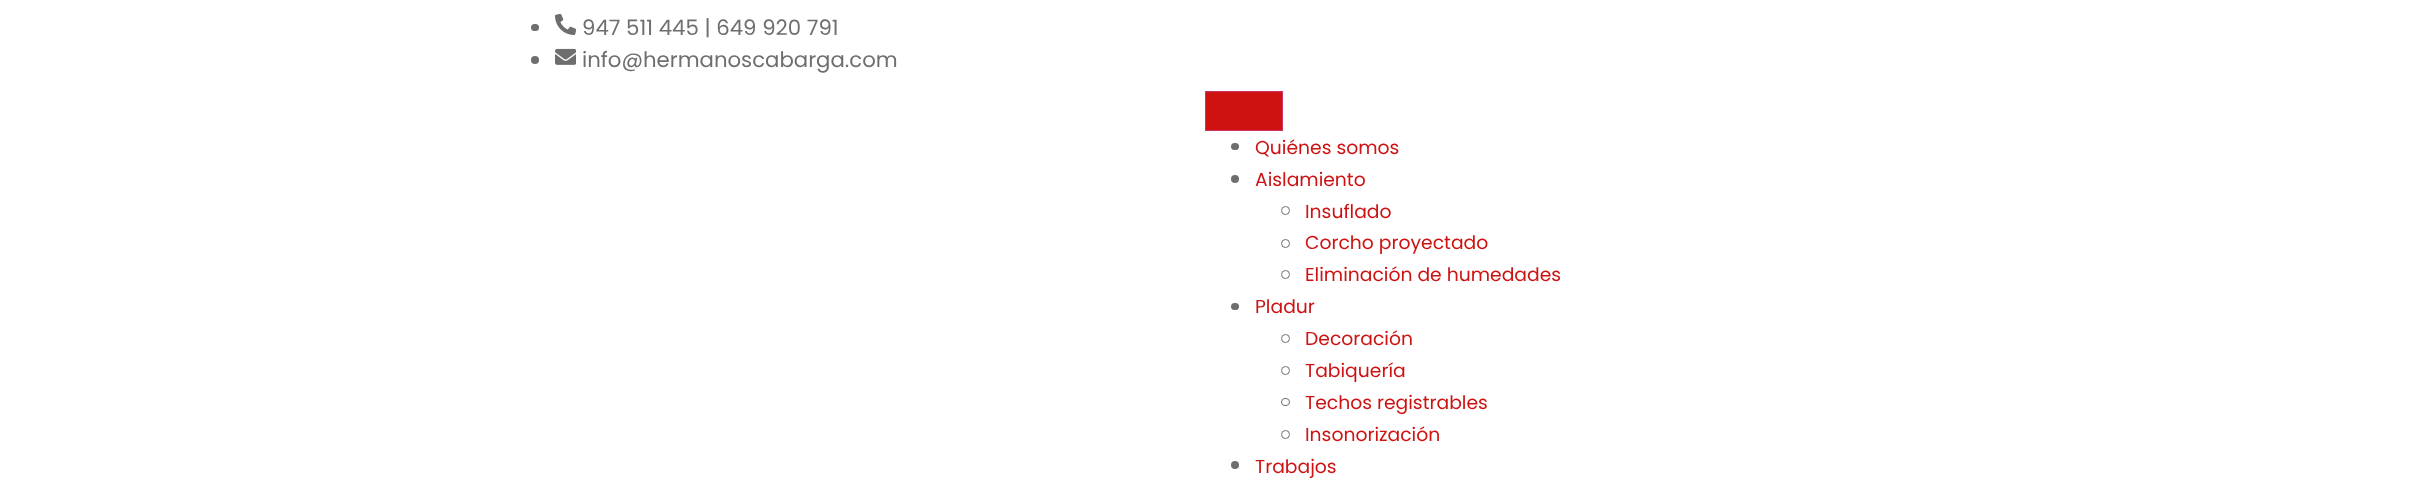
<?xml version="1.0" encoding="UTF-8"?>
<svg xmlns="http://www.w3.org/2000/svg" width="2410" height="482">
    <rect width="100%" height="100%" fill="#FFFFFF"/>
    <rect x="531" y="24" width="8" height="7" rx="3.5" fill="#6E6E6E"/>
    <image x="555" y="14" width="21" height="21" href="img_01.png"/>
    <text x="582" y="35" font-family="Poppins" font-size="21.25" fill="#6E6E6E">947 511 445 | 649 920 791</text>
    <circle cx="535" cy="60" r="4" fill="#6E6E6E"/>
    <image x="555" y="48" width="21" height="17" href="img_02.png"/>
    <text x="582" y="67" font-family="Poppins" font-size="21.25" fill="#6E6E6E">info@hermanoscabarga.com</text>
    <rect x="1205.5" y="91.5" width="77" height="39" fill="#CE1212" stroke="#CC3366"/>
    <rect x="1231" y="143" width="8" height="7" rx="3.5" fill="#6E6E6E"/>
    <text x="1255" y="154" font-family="Poppins" font-size="18.75" fill="#CE1212">Quiénes somos</text>
    <circle cx="1235" cy="179" r="4" fill="#6E6E6E"/>
    <text x="1255" y="186" font-family="Poppins" font-size="18.75" fill="#CE1212">Aislamiento</text>
    <circle cx="1285.5" cy="210.5" r="4" fill="none" stroke="#6E6E6E"/>
    <text x="1305" y="218" font-family="Poppins" font-size="18.75" fill="#CE1212">Insuflado</text>
    <circle cx="1285.5" cy="243.5" r="4" fill="none" stroke="#6E6E6E"/>
    <text x="1305" y="249" font-family="Poppins" font-size="18.75" fill="#CE1212">Corcho proyectado</text>
    <circle cx="1285.5" cy="274.5" r="4" fill="none" stroke="#6E6E6E"/>
    <text x="1305" y="281" font-family="Poppins" font-size="18.75" fill="#CE1212">Eliminación de humedades</text>
    <rect x="1231" y="303" width="8" height="7" rx="3.5" fill="#6E6E6E"/>
    <text x="1255" y="313" font-family="Poppins" font-size="18.75" fill="#CE1212">Pladur</text>
    <circle cx="1285.5" cy="338.5" r="4" fill="none" stroke="#6E6E6E"/>
    <text x="1305" y="345" font-family="Poppins" font-size="18.75" fill="#CE1212">Decoración</text>
    <circle cx="1285.5" cy="370.5" r="4" fill="none" stroke="#6E6E6E"/>
    <text x="1305" y="377" font-family="Poppins" font-size="18.75" fill="#CE1212">Tabiquería</text>
    <rect x="1281.5" y="398.5" width="8" height="7" rx="3.5" fill="none" stroke="#6E6E6E"/>
    <text x="1305" y="409" font-family="Poppins" font-size="18.75" fill="#CE1212">Techos registrables</text>
    <circle cx="1285.5" cy="434.5" r="4" fill="none" stroke="#6E6E6E"/>
    <text x="1305" y="441" font-family="Poppins" font-size="18.75" fill="#CE1212">Insonorización</text>
    <circle cx="1235" cy="465" r="4" fill="#6E6E6E"/>
    <text x="1255" y="473" font-family="Poppins" font-size="18.75" fill="#CE1212">Trabajos</text>
</svg>
